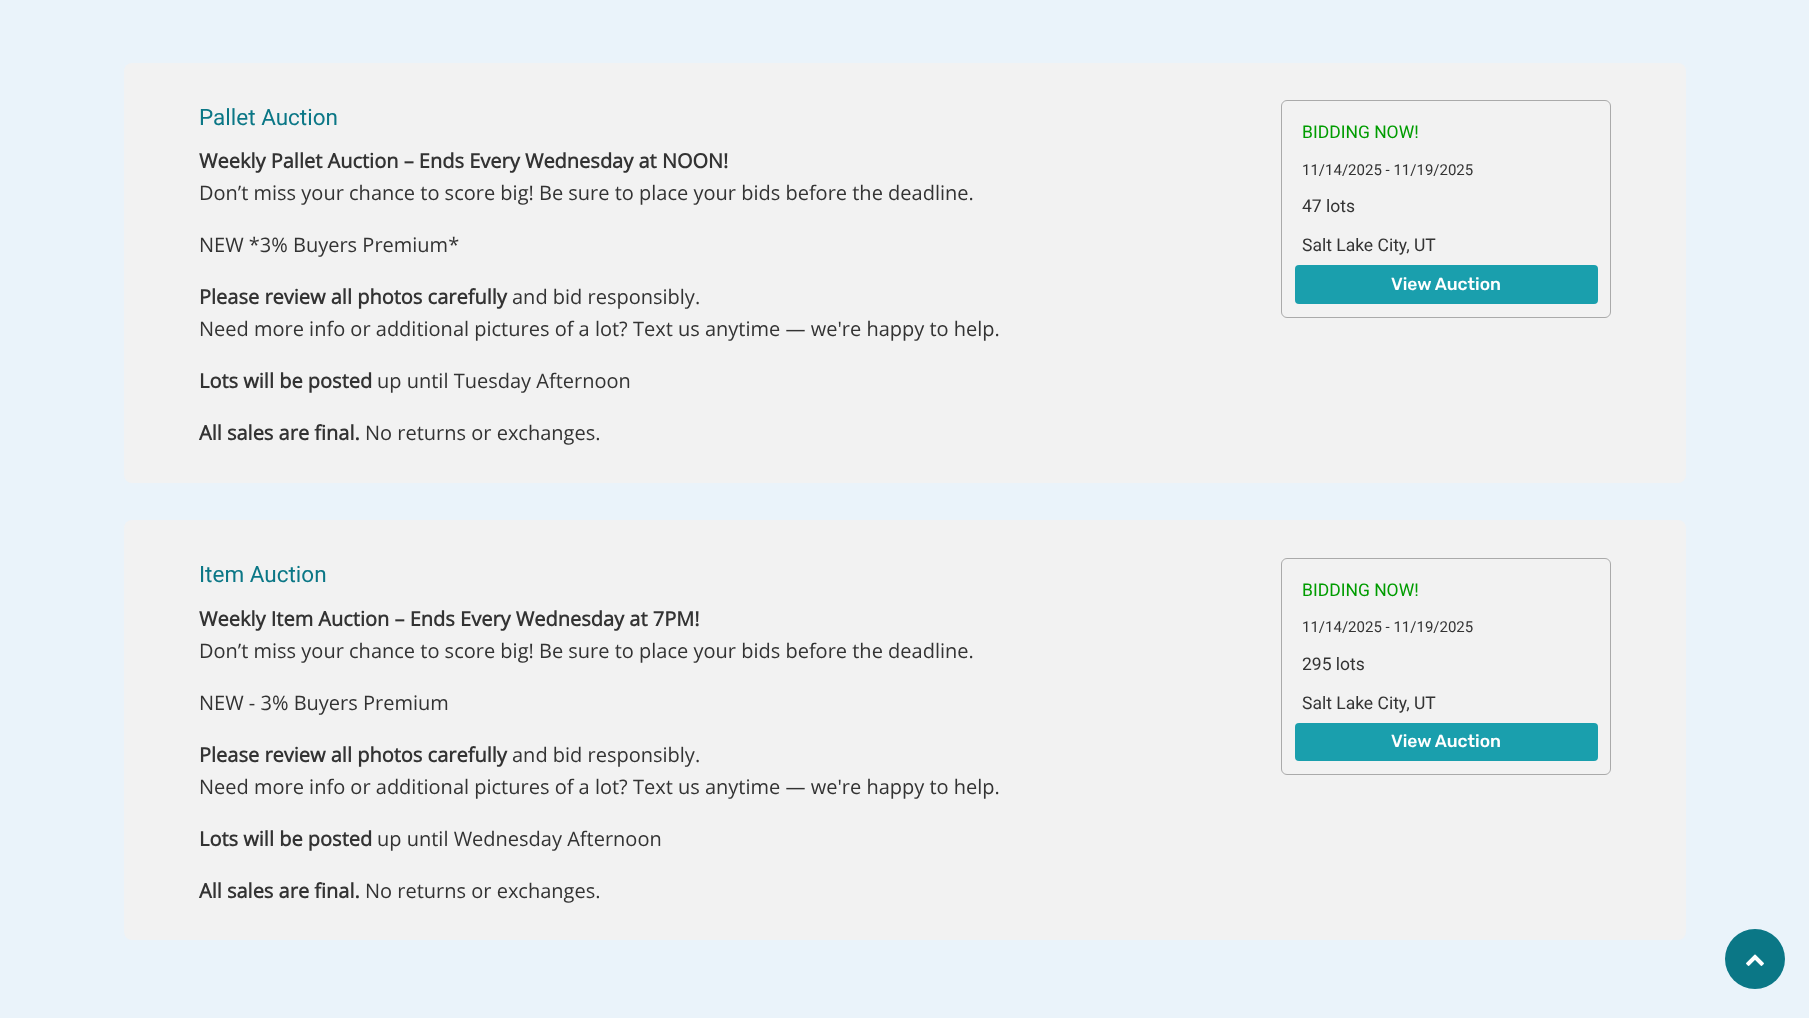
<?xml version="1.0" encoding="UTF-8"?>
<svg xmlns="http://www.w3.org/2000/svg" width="1809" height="1018">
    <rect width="100%" height="100%" fill="#EAF3FA"/>
    <rect x="124" y="63" width="1562" height="420" rx="8" fill="#F2F2F2"/>
    <text x="199" y="125" font-family="Roboto" font-size="22.5" fill="#0B7786">Pallet Auction</text>
    <text x="199" y="168" font-family="Open Sans" font-size="20" font-weight="700" fill="#333333">Weekly Pallet Auction – Ends Every Wednesday at NOON!</text>
    <text x="199" y="200" font-family="Open Sans" font-size="20" fill="#333333">Don’t miss your chance to score big! Be sure to place your bids before the deadline.</text>
    <text x="199" y="252" font-family="Open Sans" font-size="20" fill="#333333">NEW *3% Buyers Premium*</text>
    <text x="199" y="304" font-family="Open Sans" font-size="20" font-weight="700" fill="#333333">Please review all photos carefully</text>
    <text x="512" y="304" font-family="Open Sans" font-size="20" fill="#333333">and bid responsibly.</text>
    <text x="199" y="336" font-family="Open Sans" font-size="20" fill="#333333">Need more info or additional pictures of a lot? Text us anytime — we're happy to help.</text>
    <text x="199" y="388" font-family="Open Sans" font-size="20" font-weight="700" fill="#333333">Lots will be posted</text>
    <text x="377" y="388" font-family="Open Sans" font-size="20" fill="#333333">up until Tuesday Afternoon</text>
    <text x="199" y="440" font-family="Open Sans" font-size="20" font-weight="700" fill="#333333">All sales are final.</text>
    <text x="365" y="440" font-family="Open Sans" font-size="20" fill="#333333">No returns or exchanges.</text>
    <rect x="1281.5" y="100.5" width="329" height="217" rx="5.5" fill="none" stroke="#AAAAAA"/>
    <text x="1302" y="138" font-family="Roboto" font-size="17.5" fill="#009C00">BIDDING NOW!</text>
    <text x="1302" y="175" font-family="Roboto" font-size="15" fill="#333333">11/14/2025 - 11/19/2025</text>
    <text x="1302" y="212" font-family="Roboto" font-size="17.5" fill="#333333">47 lots</text>
    <text x="1302" y="251" font-family="Roboto" font-size="17.5" fill="#333333">Salt Lake City, UT</text>
    <rect x="1295" y="265" width="303" height="39" rx="4" fill="#1A9FAD"/>
    <text x="1391" y="290" font-family="Rubik" font-size="17.5" font-weight="500" fill="#FFFFFF">View Auction</text>
    <rect x="124" y="520" width="1562" height="420" rx="8" fill="#F2F2F2"/>
    <text x="199" y="582" font-family="Roboto" font-size="22.5" fill="#0B7786">Item Auction</text>
    <text x="199" y="626" font-family="Open Sans" font-size="20" font-weight="700" fill="#333333">Weekly Item Auction – Ends Every Wednesday at 7PM!</text>
    <text x="199" y="658" font-family="Open Sans" font-size="20" fill="#333333">Don’t miss your chance to score big! Be sure to place your bids before the deadline.</text>
    <text x="199" y="710" font-family="Open Sans" font-size="20" fill="#333333">NEW - 3% Buyers Premium</text>
    <text x="199" y="762" font-family="Open Sans" font-size="20" font-weight="700" fill="#333333">Please review all photos carefully</text>
    <text x="512" y="762" font-family="Open Sans" font-size="20" fill="#333333">and bid responsibly.</text>
    <text x="199" y="794" font-family="Open Sans" font-size="20" fill="#333333">Need more info or additional pictures of a lot? Text us anytime — we're happy to help.</text>
    <text x="199" y="846" font-family="Open Sans" font-size="20" font-weight="700" fill="#333333">Lots will be posted</text>
    <text x="377" y="846" font-family="Open Sans" font-size="20" fill="#333333">up until Wednesday Afternoon</text>
    <text x="199" y="898" font-family="Open Sans" font-size="20" font-weight="700" fill="#333333">All sales are final.</text>
    <text x="365" y="898" font-family="Open Sans" font-size="20" fill="#333333">No returns or exchanges.</text>
    <rect x="1281.5" y="558.5" width="329" height="216" rx="5.5" fill="none" stroke="#AAAAAA"/>
    <text x="1302" y="596" font-family="Roboto" font-size="17.5" fill="#009C00">BIDDING NOW!</text>
    <text x="1302" y="632" font-family="Roboto" font-size="15" fill="#333333">11/14/2025 - 11/19/2025</text>
    <text x="1302" y="670" font-family="Roboto" font-size="17.5" fill="#333333">295 lots</text>
    <text x="1302" y="709" font-family="Roboto" font-size="17.5" fill="#333333">Salt Lake City, UT</text>
    <rect x="1295" y="723" width="303" height="38" rx="4" fill="#1A9FAD"/>
    <text x="1391" y="747" font-family="Rubik" font-size="17.5" font-weight="500" fill="#FFFFFF">View Auction</text>
    <circle cx="1755" cy="959" r="30" fill="#0B7786"/>
    <image x="1746" y="954" width="18" height="12" href="img_01.png"/>
</svg>
